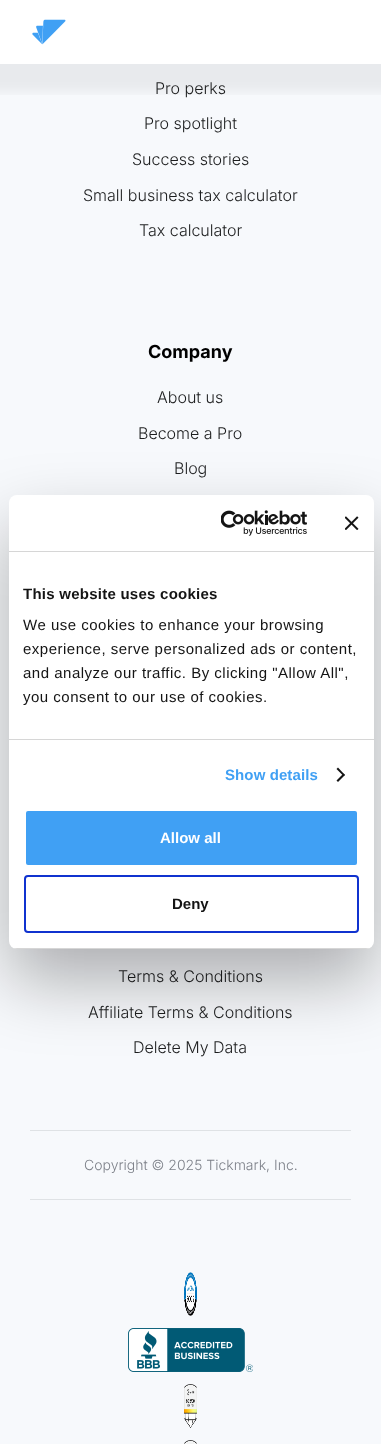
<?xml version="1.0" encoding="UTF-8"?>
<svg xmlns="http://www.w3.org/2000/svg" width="381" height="1444">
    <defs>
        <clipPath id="clip1"><rect x="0" y="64" width="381" height="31"/></clipPath>
        <filter id="blur1" x="-50%" y="-200%" width="200%" height="500%"><feGaussianBlur stdDeviation="6"/></filter>
        <filter id="blur2" x="-50%" y="-200%" width="200%" height="500%"><feGaussianBlur stdDeviation="34"/></filter>
        <clipPath id="clip2"><rect x="9" y="495" width="365" height="454" rx="8"/></clipPath>
    </defs>
    <rect width="100%" height="100%" fill="#F7F9FC"/>
    <rect x="0" y="0" width="381" height="64" fill="#FFFFFF"/>
    <g clip-path="url(#clip1)">
        <rect x="-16" y="-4" width="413" height="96" fill="#051A2F" fill-opacity="0.06" filter="url(#blur1)"/>
    </g>
    <image x="32" y="19" width="34" height="26" href="img_01.png"/>
    <rect x="30" y="1130" width="321" height="1" fill="#DFE2E5"/>
    <text x="155" y="94" font-family="Inter" font-size="16" font-weight="300" fill="#1C1D1E">Pro perks</text>
    <text x="144" y="129" font-family="Inter" font-size="16" font-weight="300" fill="#1C1D1E">Pro spotlight</text>
    <text x="132" y="165" font-family="Inter" font-size="16" font-weight="300" fill="#1C1D1E">Success stories</text>
    <text x="83" y="201" font-family="Inter" font-size="16" font-weight="300" fill="#1C1D1E">Small business tax calculator</text>
    <text x="139" y="236" font-family="Inter" font-size="16" font-weight="300" fill="#1C1D1E">Tax calculator</text>
    <text x="148" y="358" font-family="Inter" font-size="18" font-weight="700" fill="#000000">Company</text>
    <text x="157" y="403" font-family="Inter" font-size="16" font-weight="300" fill="#1C1D1E">About us</text>
    <text x="138" y="439" font-family="Inter" font-size="16" font-weight="300" fill="#1C1D1E">Become a Pro</text>
    <text x="174" y="474" font-family="Inter" font-size="16" font-weight="300" fill="#1C1D1E">Blog</text>
    <text x="118" y="982" font-family="Inter" font-size="16" font-weight="300" fill="#1C1D1E">Terms &amp; Conditions</text>
    <text x="88" y="1018" font-family="Inter" font-size="16" font-weight="300" fill="#1C1D1E">Affiliate Terms &amp; Conditions</text>
    <text x="133" y="1053" font-family="Inter" font-size="16" font-weight="300" fill="#1C1D1E">Delete My Data</text>
    <rect x="30" y="1199" width="321" height="1" fill="#DFE2E5"/>
    <text x="84" y="1170" font-family="Inter" font-size="14" font-weight="300" fill="#7D8189">Copyright © 2025 Tickmark, Inc.</text>
    <image x="184" y="1272" width="13" height="44" href="img_02.png"/>
    <image x="128" y="1328" width="125" height="44" href="img_03.png"/>
    <image x="184" y="1384" width="13" height="44" href="img_04.png"/>
    <image x="184" y="1440" width="13" height="4" href="img_05.png"/>
    <rect x="9" y="527" width="365" height="454" rx="8" fill="#000000" fill-opacity="0.3" filter="url(#blur2)"/>
    <rect x="9" y="495" width="365" height="454" rx="8" fill="#FFFFFF"/>
    <rect x="9" y="551" width="365" height="1" fill="#D6D6D6"/>
    <image x="221" y="510" width="86" height="26" href="img_06.png"/>
    <image x="345" y="516" width="14" height="14" href="img_07.png"/>
    <rect x="9" y="739" width="365" height="1" fill="#D6D6D6"/>
    <text x="23" y="599" font-family="Liberation Sans" font-size="15" font-weight="700" letter-spacing="0.25" fill="#141414">This website uses cookies</text>
    <text font-family="Liberation Sans" font-size="15" letter-spacing="0.5" fill="#141414">
        <tspan x="23" y="630">We use cookies to enhance your browsing</tspan>
        <tspan x="23" y="654">experience, serve personalized ads or content,</tspan>
        <tspan x="23" y="678">and analyze our traffic. By clicking "Allow All",</tspan>
        <tspan x="23" y="702">you consent to our use of cookies.</tspan>
    </text>
    <text x="225" y="780" font-family="Liberation Sans" font-size="15" font-weight="700" letter-spacing="0.1" fill="#40A0F4">Show details</text>
    <path d="M 338 767.5 L 345 775 L 343.5 776 L 336.5 769 Z" fill="#141414"/>
    <path d="M 343.5 773.5 L 345 775 L 338 782 L 336.5 780.5 Z" fill="#141414"/>
    <g clip-path="url(#clip2)">
        <rect x="9" y="948" width="365" height="1" fill="#D6D6D6"/>
    </g>
    <rect x="25" y="810" width="333" height="56" rx="3" fill="#40A0F4" stroke="#FFFFFF" stroke-width="2"/>
    <text x="160" y="843" font-family="Liberation Sans" font-size="15" font-weight="700" fill="#FFFFFF">Allow all</text>
    <rect x="25" y="876" width="333" height="56" rx="3" fill="none" stroke="#1032CF" stroke-width="2"/>
    <text x="172" y="909" font-family="Liberation Sans" font-size="15" font-weight="700" fill="#141414">Deny</text>
</svg>
